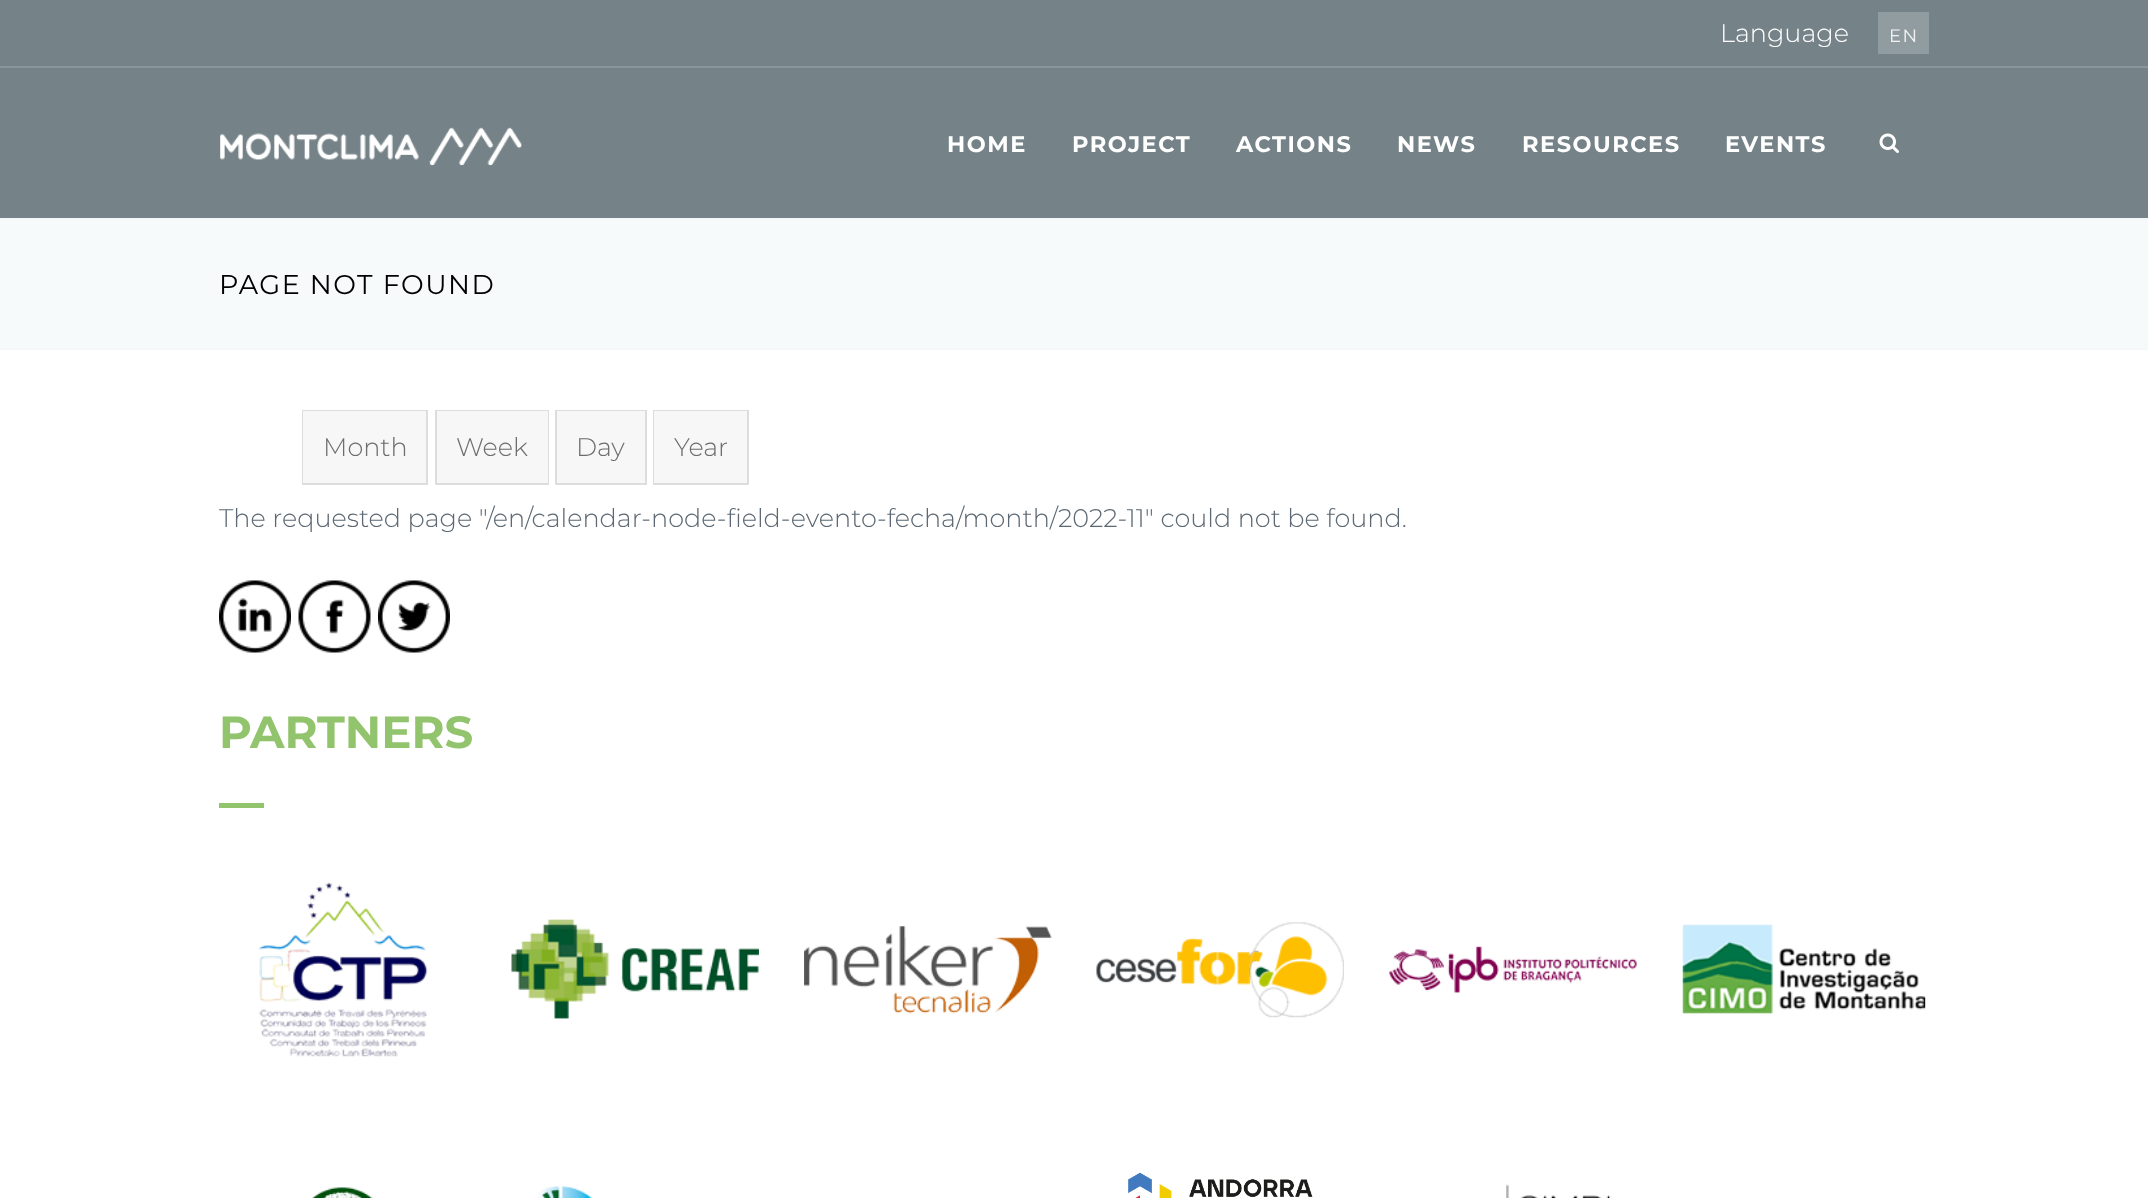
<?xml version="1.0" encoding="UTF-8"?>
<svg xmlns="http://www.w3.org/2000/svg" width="2148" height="1198">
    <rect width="100%" height="100%" fill="#FFFFFF"/>
    <rect x="0" y="0" width="2148" height="218" fill="#758388"/>
    <rect x="0" y="66" width="2148" height="2" fill="#8A969A"/>
    <text x="1720" y="42" font-family="Montserrat" font-size="25.5" font-weight="300" fill="#FFFFFF">Language</text>
    <rect x="1878" y="12" width="51" height="42" fill="#919CA0"/>
    <text x="1889" y="42" font-family="Montserrat" font-size="18" letter-spacing="1.5" fill="#F2F2F2">EN</text>
    <image x="220" y="127" width="302" height="39" href="img_01.png"/>
    <text x="947" y="152" font-family="Montserrat" font-size="22.5" font-weight="700" letter-spacing="1.5" fill="#FFFFFF">HOME</text>
    <text x="1072" y="152" font-family="Montserrat" font-size="22.5" font-weight="700" letter-spacing="1.5" fill="#FFFFFF">PROJECT</text>
    <text x="1236" y="152" font-family="Montserrat" font-size="22.5" font-weight="700" letter-spacing="1.5" fill="#FFFFFF">ACTIONS</text>
    <text x="1397" y="152" font-family="Montserrat" font-size="22.5" font-weight="700" letter-spacing="1.5" fill="#FFFFFF">NEWS</text>
    <text x="1522" y="152" font-family="Montserrat" font-size="22.5" font-weight="700" letter-spacing="1.5" fill="#FFFFFF">RESOURCES</text>
    <text x="1725" y="152" font-family="Montserrat" font-size="22.5" font-weight="700" letter-spacing="1.5" fill="#FFFFFF">EVENTS</text>
    <image x="1879" y="133" width="20" height="20" href="img_02.png"/>
    <rect x="0" y="220" width="2148" height="128" fill="#F7FAFB"/>
    <rect x="0" y="218" width="2148" height="2" fill="#F4F8F9"/>
    <rect x="0" y="348" width="2148" height="2" fill="#F4F8F9"/>
    <text x="219" y="294" font-family="Montserrat" font-size="27" letter-spacing="1.5" fill="#000000">PAGE NOT FOUND</text>
    <rect x="303" y="411" width="124" height="73" fill="none" stroke="#DDDDDD" stroke-width="2"/>
    <rect x="303" y="411" width="123" height="72" fill="#F7F7F7"/>
    <text x="323" y="456" font-family="Montserrat" font-size="25.5" font-weight="300" fill="#6D6D6D">Month</text>
    <rect x="436" y="411" width="112" height="73" fill="none" stroke="#DDDDDD" stroke-width="2"/>
    <rect x="437" y="411" width="111" height="72" fill="#F7F7F7"/>
    <text x="456" y="456" font-family="Montserrat" font-size="25.5" font-weight="300" fill="#6D6D6D">Week</text>
    <rect x="556" y="411" width="90" height="73" fill="none" stroke="#DDDDDD" stroke-width="2"/>
    <rect x="557" y="411" width="88" height="72" fill="#F7F7F7"/>
    <text x="576" y="456" font-family="Montserrat" font-size="25.5" font-weight="300" fill="#6D6D6D">Day</text>
    <rect x="654" y="411" width="94" height="73" fill="none" stroke="#DDDDDD" stroke-width="2"/>
    <rect x="654" y="411" width="93" height="72" fill="#F7F7F7"/>
    <text x="674" y="456" font-family="Montserrat" font-size="25.5" font-weight="300" fill="#6D6D6D">Year</text>
    <text x="219" y="527" font-family="Montserrat" font-size="25.5" font-weight="300" fill="#5C6873">The requested page "/en/calendar-node-field-evento-fecha/month/2022-11" could not be found.</text>
    <image x="219" y="580" width="72" height="73" href="img_03.png"/>
    <image x="298" y="580" width="73" height="73" href="img_04.png"/>
    <image x="378" y="580" width="72" height="73" href="img_05.png"/>
    <text x="219" y="748" font-family="Montserrat" font-size="45" font-weight="700" fill="#92C46D">PARTNERS</text>
    <rect x="219" y="803" width="45" height="5" fill="#92C46D"/>
    <image x="258" y="882" width="170" height="175" href="img_06.png"/>
    <image x="511" y="919" width="248" height="100" href="img_07.png"/>
    <image x="804" y="926" width="248" height="88" href="img_08.png"/>
    <image x="1096" y="922" width="248" height="96" href="img_09.png"/>
    <image x="1389" y="946" width="248" height="47" href="img_10.png"/>
    <image x="1682" y="924" width="244" height="90" href="img_11.png"/>
    <image x="311" y="1187" width="62" height="11" href="img_12.png"/>
    <image x="537" y="1186" width="56" height="12" href="img_13.png"/>
    <image x="1128" y="1172" width="185" height="26" href="img_14.png"/>
    <image x="1506" y="1184" width="105" height="14" href="img_15.png"/>
</svg>
